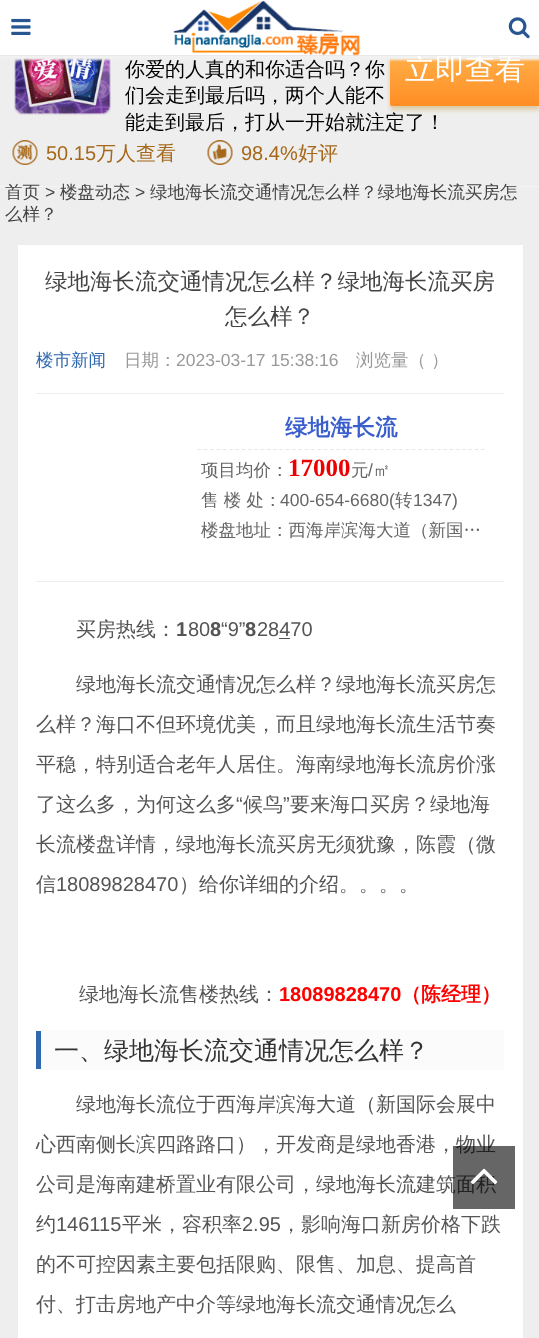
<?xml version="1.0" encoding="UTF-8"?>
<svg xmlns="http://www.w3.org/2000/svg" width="539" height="1338">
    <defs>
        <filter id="blur1" x="-50%" y="-200%" width="200%" height="500%"><feGaussianBlur stdDeviation="2"/></filter>
        <linearGradient id="g1" gradientUnits="userSpaceOnUse" x1="465" y1="31" x2="465" y2="106"><stop offset="0" stop-color="#FFBF5A"/><stop offset="1" stop-color="#FF8D24"/></linearGradient>
        <filter id="blur2" x="-50%" y="-200%" width="200%" height="500%"><feGaussianBlur stdDeviation="1"/></filter>
    </defs>
    <rect width="100%" height="100%" fill="#EEEEEE"/>
    <rect x="390" y="35" width="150" height="75" rx="2" fill="#DDCBA5" filter="url(#blur1)"/>
    <rect x="390" y="31" width="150" height="75" rx="2" fill="url(#g1)"/>
    <image x="14" y="56" width="97" height="59" href="img_06.png"/>
    <rect x="0" y="4" width="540" height="56" fill="#F1F1F1" filter="url(#blur2)"/>
    <rect x="0" y="0" width="539" height="55" fill="#FFFFFF"/>
    <text x="405" y="79" font-family="WenQuanYi Zen Hei" font-size="30" font-weight="500" fill="#FFFFFF">立即查看</text>
    <rect x="0" y="55" width="539" height="1" fill="#EAEAEA"/>
    <image x="11" y="18" width="20" height="17" href="img_01.png"/>
    <image x="173" y="0" width="187" height="56" href="img_02.png"/>
    <image x="508" y="17" width="22" height="22" href="img_03.png"/>
    <rect x="0" y="186" width="539" height="1" fill="#F5F3F3"/>
    <text font-family="WenQuanYi Zen Hei" font-size="20" font-weight="500" fill="#000000">
        <tspan x="125" y="76">你爱的人真的和你适合吗？你</tspan>
        <tspan x="125" y="102">们会走到最后吗，两个人能不</tspan>
        <tspan x="125" y="129">能走到最后，打从一开始就注定了！</tspan>
    </text>
    <image x="12" y="140" width="26" height="25" href="img_04.png"/>
    <text x="46" y="160" font-family="Liberation Sans" font-size="20" fill="#A6681A">50.15</text>
    <text x="96" y="160" font-family="WenQuanYi Zen Hei" font-size="20" font-weight="500" fill="#A6681A">万人查看</text>
    <image x="207" y="140" width="26" height="25" href="img_05.png"/>
    <text x="241" y="160" font-family="Liberation Sans" font-size="20" fill="#A6681A">98.4%</text>
    <text x="298" y="160" font-family="WenQuanYi Zen Hei" font-size="20" font-weight="500" fill="#A6681A">好评</text>
    <text x="5" y="198" font-family="WenQuanYi Zen Hei" font-size="17.5" font-weight="500" fill="#444444">首页</text>
    <text x="45" y="198" font-family="Liberation Sans" font-size="17.5" fill="#444444">&gt;</text>
    <text x="60" y="198" font-family="WenQuanYi Zen Hei" font-size="17.5" font-weight="500" fill="#444444">楼盘动态</text>
    <text x="135" y="198" font-family="Liberation Sans" font-size="17.5" fill="#444444">&gt;</text>
    <text x="150" y="198" font-family="WenQuanYi Zen Hei" font-size="17.5" font-weight="500" fill="#444444">绿地海长流交通情况怎么样？绿地海长流买房怎</text>
    <text x="5" y="220" font-family="WenQuanYi Zen Hei" font-size="17.5" font-weight="500" fill="#444444">么样？</text>
    <rect x="18" y="245" width="505" height="1093" fill="#FFFFFF"/>
    <rect x="36" y="581" width="468" height="1" fill="#EEEEEE"/>
    <text x="45" y="289" font-family="WenQuanYi Zen Hei" font-size="22.5" font-weight="500" fill="#444444">绿地海长流交通情况怎么样？绿地海长流买房</text>
    <text x="225" y="324" font-family="WenQuanYi Zen Hei" font-size="22.5" font-weight="500" fill="#444444">怎么样？</text>
    <text x="36" y="366" font-family="WenQuanYi Zen Hei" font-size="17.5" font-weight="500" fill="#3169B0">楼市新闻</text>
    <text x="124" y="366" font-family="WenQuanYi Zen Hei" font-size="17.5" font-weight="500" fill="#999999">日期：</text>
    <text x="176" y="366" font-family="Liberation Sans" font-size="17.5" fill="#999999">2023-03-17 15:38:16</text>
    <text x="356" y="366" font-family="WenQuanYi Zen Hei" font-size="17.5" font-weight="500" fill="#999999">浏览量（ ）</text>
    <rect x="36" y="393" width="468" height="1" fill="#EDEDED"/>
    <path d="M 197.5 449.5 H 485" fill="none" stroke="#E7E7E7" stroke-width="1.2" stroke-dasharray="3.75 2.55"/>
    <text x="285" y="435" font-family="WenQuanYi Zen Hei" font-size="22.5" font-weight="700" fill="#3A5FCD">绿地海长流</text>
    <text x="201" y="476" font-family="WenQuanYi Zen Hei" font-size="17.5" font-weight="500" fill="#666666">项目均价：</text>
    <text x="288" y="476" font-family="Liberation Serif" font-size="25" font-weight="700" fill="#EE0000">17000</text>
    <text x="351" y="476" font-family="WenQuanYi Zen Hei" font-size="17.5" font-weight="500" fill="#666666">元</text>
    <text x="368" y="476" font-family="Liberation Sans" font-size="17.5" fill="#666666">/</text>
    <text x="373" y="476" font-family="WenQuanYi Zen Hei" font-size="17.5" font-weight="500" fill="#666666">㎡</text>
    <text x="201" y="506" font-family="WenQuanYi Zen Hei" font-size="17.5" font-weight="500" fill="#666666">售 楼 处：</text>
    <text x="280" y="506" font-family="Liberation Sans" font-size="17.5" fill="#666666">400-654-6680(</text>
    <text x="395" y="506" font-family="WenQuanYi Zen Hei" font-size="17.5" font-weight="500" fill="#666666">转</text>
    <text x="413" y="506" font-family="Liberation Sans" font-size="17.5" fill="#666666">1347)</text>
    <text x="201" y="536" font-family="WenQuanYi Zen Hei" font-size="17.5" font-weight="500" fill="#666666">楼盘地址：西海岸滨海大道（新国…</text>
    <text x="76" y="636" font-family="WenQuanYi Zen Hei" font-size="20" font-weight="500" fill="#555555">买房热线：</text>
    <text x="176" y="636" font-family="Liberation Sans" font-size="20" font-weight="700" fill="#555555">1</text>
    <text x="188" y="636" font-family="Liberation Sans" font-size="20" fill="#555555">80</text>
    <text x="210" y="636" font-family="Liberation Sans" font-size="20" font-weight="700" fill="#555555">8</text>
    <text x="221" y="636" font-family="Liberation Sans" font-size="20" fill="#555555">“9”</text>
    <text x="245" y="636" font-family="Liberation Sans" font-size="20" font-weight="700" fill="#555555">8</text>
    <text x="257" y="636" font-family="Liberation Sans" font-size="20" fill="#555555">28470</text>
    <rect x="279" y="638" width="11" height="1" fill="#555555"/>
    <text x="76" y="691" font-family="WenQuanYi Zen Hei" font-size="20" font-weight="500" fill="#555555">绿地海长流交通情况怎么样？绿地海长流买房怎</text>
    <text x="36" y="731" font-family="WenQuanYi Zen Hei" font-size="20" font-weight="500" fill="#555555">么样？海口不但环境优美，而且绿地海长流生活节奏</text>
    <text x="36" y="771" font-family="WenQuanYi Zen Hei" font-size="20" font-weight="500" fill="#555555">平稳，特别适合老年人居住。海南绿地海长流房价涨</text>
    <text x="36" y="811" font-family="WenQuanYi Zen Hei" font-size="20" font-weight="500" fill="#555555">了这么多，为何这么多</text>
    <text x="236" y="811" font-family="Liberation Sans" font-size="20" fill="#555555">“</text>
    <text x="243" y="811" font-family="WenQuanYi Zen Hei" font-size="20" font-weight="500" fill="#555555">候鸟</text>
    <text x="283" y="811" font-family="Liberation Sans" font-size="20" fill="#555555">”</text>
    <text x="290" y="811" font-family="WenQuanYi Zen Hei" font-size="20" font-weight="500" fill="#555555">要来海口买房？绿地海</text>
    <text x="36" y="851" font-family="WenQuanYi Zen Hei" font-size="20" font-weight="500" fill="#555555">长流楼盘详情，绿地海长流买房无须犹豫，陈霞（微</text>
    <text x="36" y="891" font-family="WenQuanYi Zen Hei" font-size="20" font-weight="500" fill="#555555">信</text>
    <text x="56" y="891" font-family="Liberation Sans" font-size="20" fill="#555555">18089828470</text>
    <text x="179" y="891" font-family="WenQuanYi Zen Hei" font-size="20" font-weight="500" fill="#555555">）给你详细的介绍。。。。</text>
    <text x="79" y="1001" font-family="WenQuanYi Zen Hei" font-size="20" font-weight="500" fill="#555555">绿地海长流售楼热线：</text>
    <text x="279" y="1001" font-family="Liberation Sans" font-size="20" font-weight="700" fill="#FF0000">18089828470</text>
    <text x="401" y="1001" font-family="WenQuanYi Zen Hei" font-size="20" font-weight="700" fill="#FF0000">（陈经理）</text>
    <path d="M 38.5 1030 H 504 V 1070 H 38.5 C 37 1070 36 1069 36 1067.5 V 1032.5 C 36 1031 37 1030 38.5 1030 Z" fill="#FBFBFB"/>
    <rect x="36" y="1031" width="5" height="38" fill="#3169B0"/>
    <text x="54" y="1059" font-family="WenQuanYi Zen Hei" font-size="25" font-weight="500" fill="#333333">一、绿地海长流交通情况怎么样？</text>
    <text x="76" y="1111" font-family="WenQuanYi Zen Hei" font-size="20" font-weight="500" fill="#555555">绿地海长流位于西海岸滨海大道（新国际会展中</text>
    <text x="36" y="1151" font-family="WenQuanYi Zen Hei" font-size="20" font-weight="500" fill="#555555">心西南侧长滨四路路口），开发商是绿地香港，物业</text>
    <text x="36" y="1191" font-family="WenQuanYi Zen Hei" font-size="20" font-weight="500" fill="#555555">公司是海南建桥置业有限公司，绿地海长流建筑面积</text>
    <text x="36" y="1231" font-family="WenQuanYi Zen Hei" font-size="20" font-weight="500" fill="#555555">约</text>
    <text x="56" y="1231" font-family="Liberation Sans" font-size="20" fill="#555555">146115</text>
    <text x="122" y="1231" font-family="WenQuanYi Zen Hei" font-size="20" font-weight="500" fill="#555555">平米，容积率</text>
    <text x="242" y="1231" font-family="Liberation Sans" font-size="20" fill="#555555">2.95</text>
    <text x="281" y="1231" font-family="WenQuanYi Zen Hei" font-size="20" font-weight="500" fill="#555555">，影响海口新房价格下跌</text>
    <text x="36" y="1271" font-family="WenQuanYi Zen Hei" font-size="20" font-weight="500" fill="#555555">的不可控因素主要包括限购、限售、加息、提高首</text>
    <text x="36" y="1311" font-family="WenQuanYi Zen Hei" font-size="20" font-weight="500" fill="#555555">付、打击房地产中介等绿地海长流交通情况怎么</text>
    <rect x="453" y="1146" width="62" height="63" fill="#000000" fill-opacity="0.6"/>
    <image x="470" y="1168" width="28" height="16" href="img_07.png"/>
</svg>
